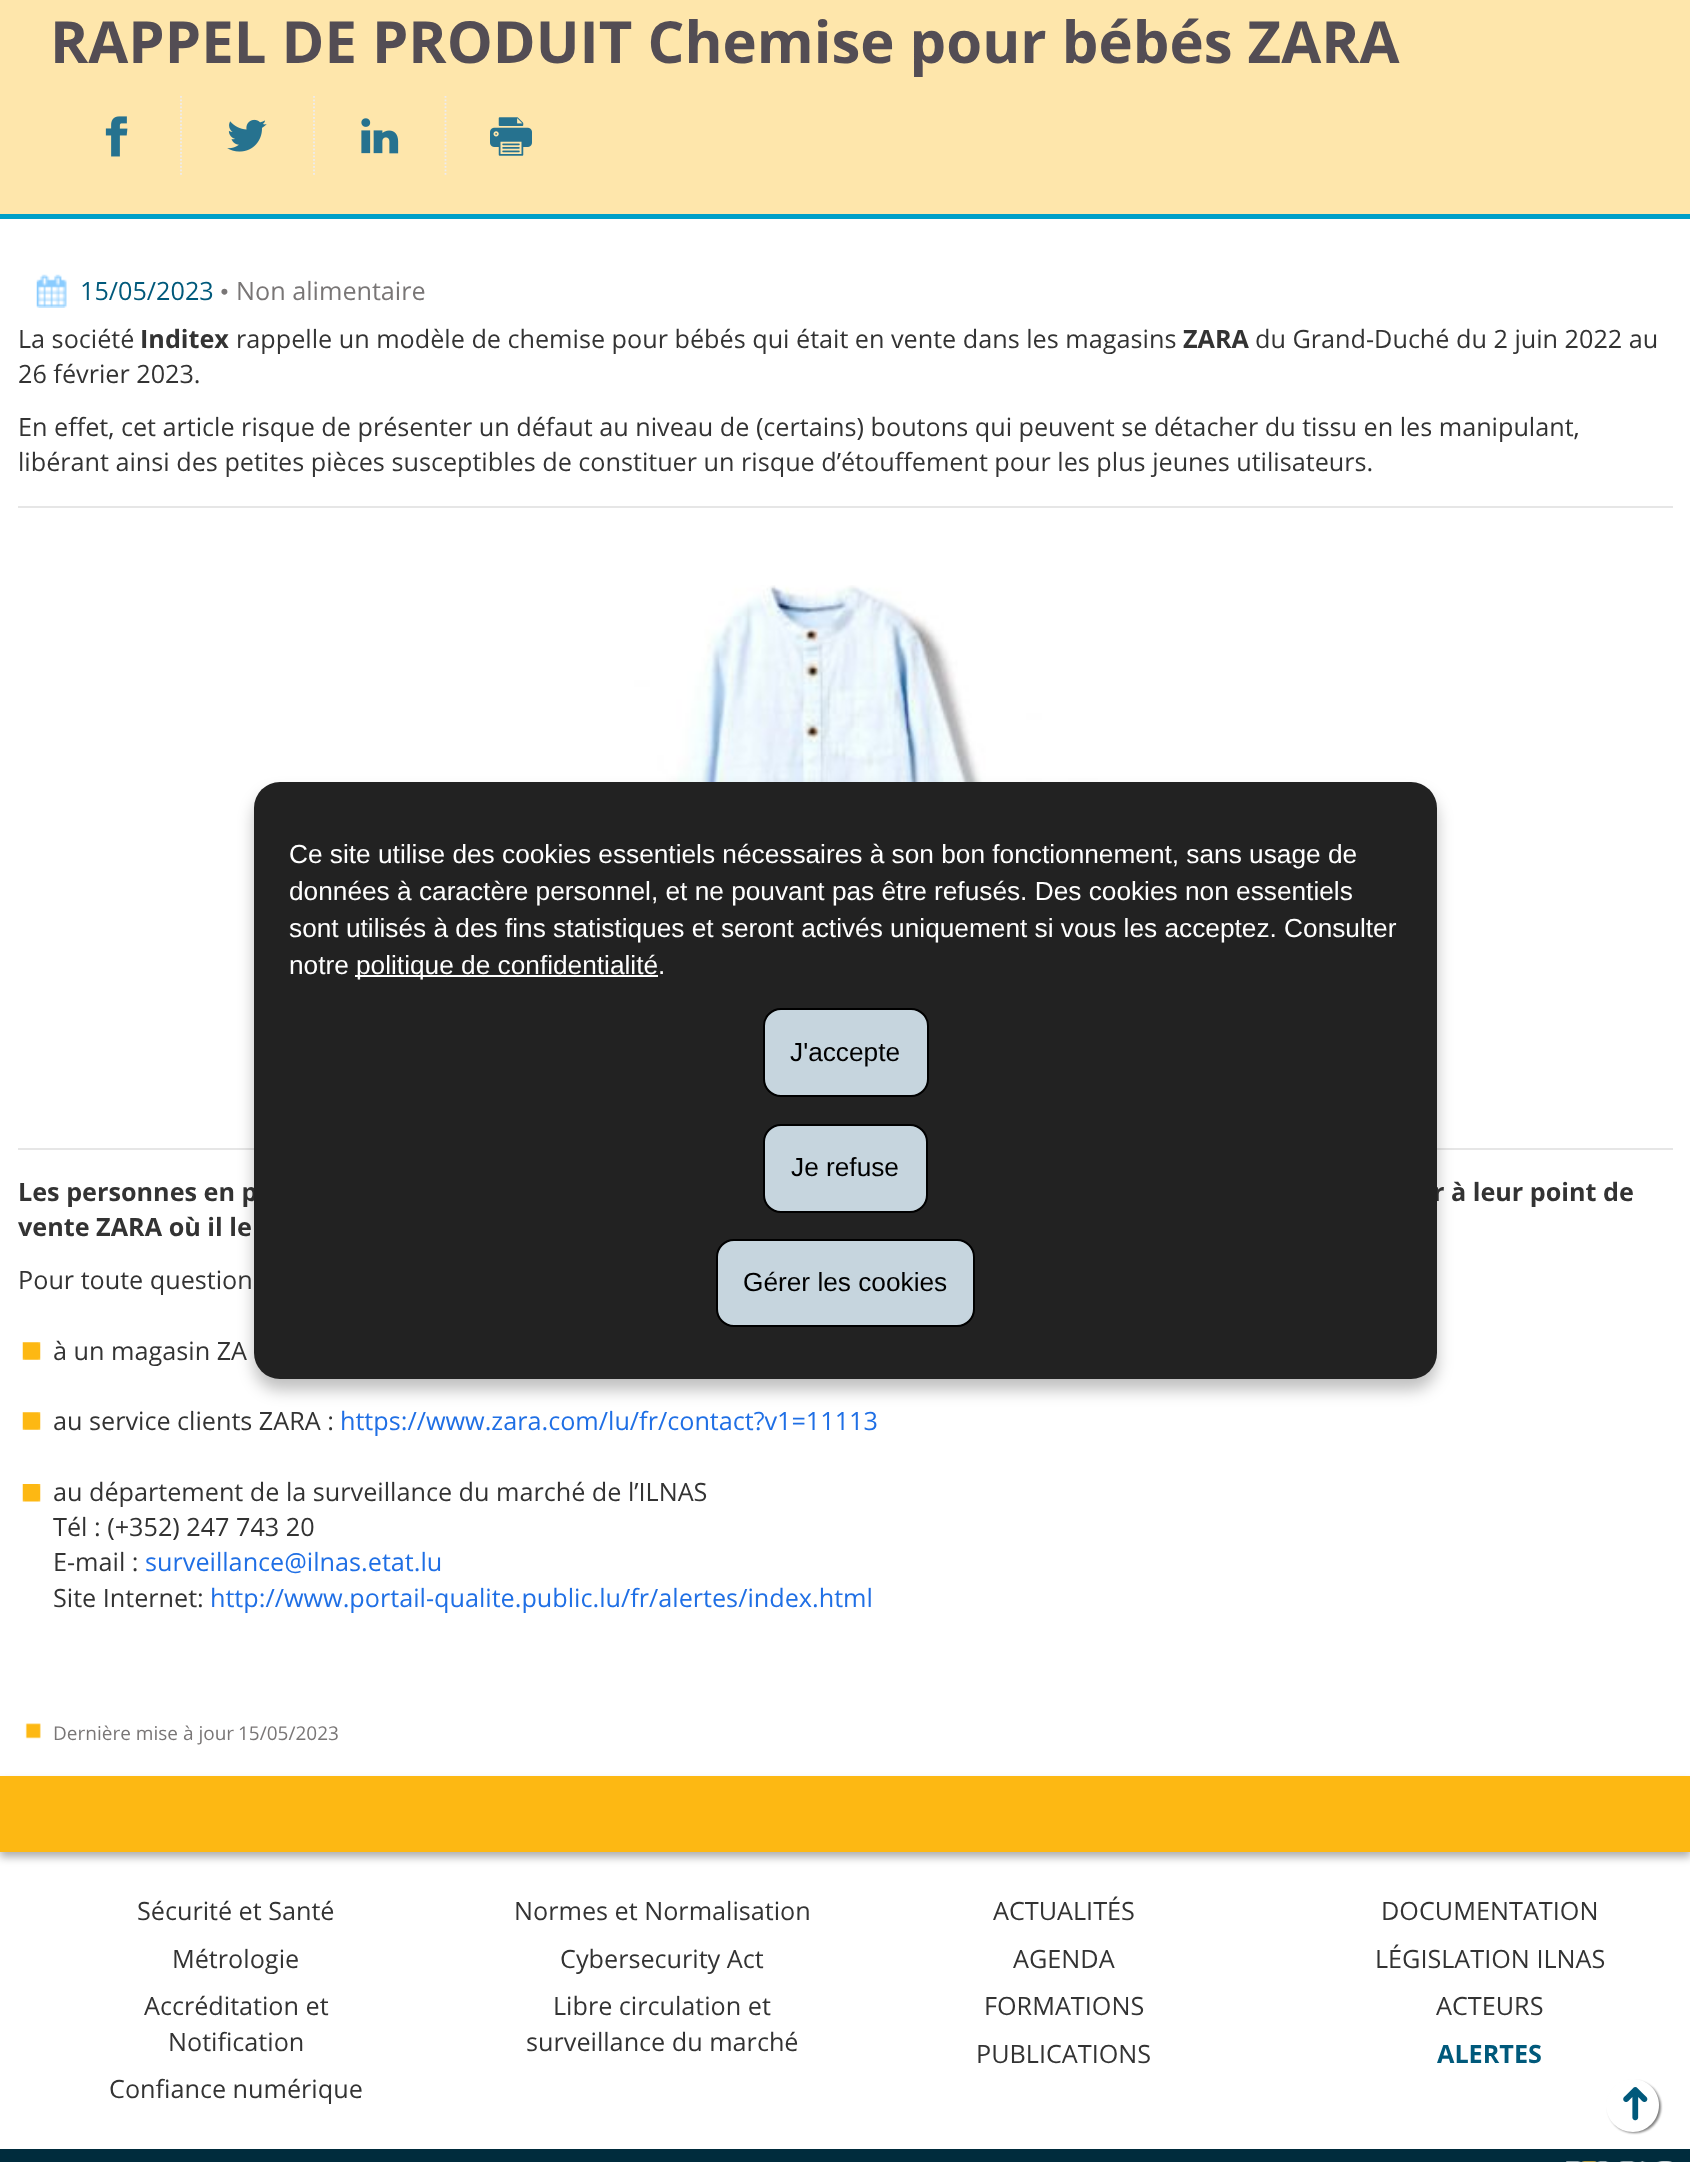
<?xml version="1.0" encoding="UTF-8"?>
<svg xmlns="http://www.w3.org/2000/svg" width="1690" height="2162">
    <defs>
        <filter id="blur1" x="-50%" y="-200%" width="200%" height="500%"><feGaussianBlur stdDeviation="4.5"/></filter>
        <filter id="blur2" x="-50%" y="-200%" width="200%" height="500%"><feGaussianBlur stdDeviation="1"/></filter>
        <filter id="blur3" x="-50%" y="-200%" width="200%" height="500%"><feGaussianBlur stdDeviation="8"/></filter>
    </defs>
    <rect width="100%" height="100%" fill="#FFFFFF"/>
    <rect x="0" y="0" width="1690" height="214" fill="#FEE6AB"/>
    <rect x="0" y="214" width="1690" height="5" fill="#00A0C8"/>
    <text x="50" y="63" font-family="Open Sans" font-size="58" font-weight="700" fill="#534D54">RAPPEL DE PRODUIT Chemise pour bébés ZARA</text>
    <image x="105" y="116" width="23" height="41" href="img_01.png"/>
    <path d="M 181 96 V 175" fill="none" stroke="#EDECEF" stroke-width="1.8" stroke-dasharray="1.75 1.75"/>
    <image x="227" y="119" width="40" height="33" href="img_02.png"/>
    <path d="M 314 96 V 175" fill="none" stroke="#EDECEF" stroke-width="1.8" stroke-dasharray="1.75 1.75"/>
    <image x="361" y="118" width="38" height="36" href="img_03.png"/>
    <path d="M 445.5 96 V 175" fill="none" stroke="#EDECEF" stroke-width="1.8" stroke-dasharray="1.75 1.75"/>
    <image x="490" y="117" width="42" height="39" href="img_04.png"/>
    <image x="36" y="274" width="31" height="34" href="img_05.png"/>
    <text x="80" y="300" font-family="Open Sans" font-size="25.2" fill="#00597B">15/05/2023</text>
    <text x="220" y="300" font-family="Liberation Serif" font-size="25.2" fill="#797676">•</text>
    <text x="236" y="300" font-family="Open Sans" font-size="25.2" fill="#797676">Non alimentaire</text>
    <text x="18" y="348" font-family="Open Sans" font-size="25.2" fill="#333333">La société</text>
    <text x="140" y="348" font-family="Open Sans" font-size="25.2" font-weight="700" fill="#333333">Inditex</text>
    <text x="236" y="348" font-family="Open Sans" font-size="25.2" fill="#333333">rappelle un modèle de chemise pour bébés qui était en vente dans les magasins</text>
    <text x="1183" y="348" font-family="Open Sans" font-size="25.2" font-weight="700" fill="#333333">ZARA</text>
    <text x="1255" y="348" font-family="Open Sans" font-size="25.2" fill="#333333">du Grand-Duché du 2 juin 2022 au</text>
    <text x="18" y="383" font-family="Open Sans" font-size="25.2" fill="#333333">26 février 2023.</text>
    <text font-family="Open Sans" font-size="25.2" fill="#333333">
        <tspan x="18" y="436">En effet, cet article risque de présenter un défaut au niveau de (certains) boutons qui peuvent se détacher du tissu en les manipulant,</tspan>
        <tspan x="18" y="471">libérant ainsi des petites pièces susceptibles de constituer un risque d’étouffement pour les plus jeunes utilisateurs.</tspan>
    </text>
    <rect x="18" y="506" width="1655" height="2" fill="#E6E6E6"/>
    <rect x="18" y="1148" width="1655" height="2" fill="#E6E6E6"/>
    <image x="455" y="585" width="769" height="197" href="img_06.png"/>
    <text x="18" y="1201" font-family="Open Sans" font-size="25.2" font-weight="700" fill="#333333">Les personnes en p</text>
    <text x="1433" y="1201" font-family="Open Sans" font-size="25.2" font-weight="700" fill="#333333">r à leur point de</text>
    <text x="18" y="1236" font-family="Open Sans" font-size="25.2" font-weight="700" fill="#333333">vente ZARA où il le</text>
    <text x="18" y="1289" font-family="Open Sans" font-size="25.2" fill="#333333">Pour toute question</text>
    <image x="22" y="1342" width="19" height="18" href="img_07.png"/>
    <text x="53" y="1360" font-family="Open Sans" font-size="25.2" fill="#333333">à un magasin ZA</text>
    <image x="22" y="1412" width="19" height="18" href="img_07.png"/>
    <text x="53" y="1430" font-family="Open Sans" font-size="25.2" fill="#333333">au service clients ZARA :</text>
    <text x="340" y="1430" font-family="Open Sans" font-size="25.2" fill="#1F6FE5">https://www.zara.com/lu/fr/contact?v1=11113</text>
    <image x="22" y="1484" width="19" height="18" href="img_08.png"/>
    <text font-family="Open Sans" font-size="25.2" fill="#333333">
        <tspan x="53" y="1501">au département de la surveillance du marché de l’ILNAS</tspan>
        <tspan x="53" y="1536">Tél : (+352) 247 743 20</tspan>
        <tspan x="53" y="1571">E-mail :</tspan>
    </text>
    <text x="145" y="1571" font-family="Open Sans" font-size="25.2" fill="#1F6FE5">surveillance@ilnas.etat.lu</text>
    <text x="53" y="1607" font-family="Open Sans" font-size="25.2" fill="#333333">Site Internet:</text>
    <text x="210" y="1607" font-family="Open Sans" font-size="25.2" fill="#1F6FE5">http://www.portail-qualite.public.lu/fr/alertes/index.html</text>
    <image x="25" y="1723" width="16" height="16" href="img_09.png"/>
    <text x="53" y="1740" font-family="Open Sans" font-size="19" fill="#797676">Dernière mise à jour</text>
    <text x="238" y="1740" font-family="Open Sans" font-size="19" fill="#797676">15/05/2023</text>
    <rect x="0" y="1782" width="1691" height="75" fill="#000000" fill-opacity="0.32" filter="url(#blur1)"/>
    <rect x="0" y="1776" width="1690" height="76" fill="#FDB813"/>
    <text x="137" y="1920" font-family="Open Sans" font-size="25.2" fill="#333333">Sécurité et Santé</text>
    <text x="514" y="1920" font-family="Open Sans" font-size="25.2" fill="#333333">Normes et Normalisation</text>
    <text x="172" y="1968" font-family="Open Sans" font-size="25.2" fill="#333333">Métrologie</text>
    <text x="560" y="1968" font-family="Open Sans" font-size="25.2" fill="#333333">Cybersecurity Act</text>
    <text x="144" y="2015" font-family="Open Sans" font-size="25.2" fill="#333333">Accréditation et</text>
    <text x="168" y="2051" font-family="Open Sans" font-size="25.2" fill="#333333">Notification</text>
    <text x="553" y="2015" font-family="Open Sans" font-size="25.2" fill="#333333">Libre circulation et</text>
    <text x="526" y="2051" font-family="Open Sans" font-size="25.2" fill="#333333">surveillance du marché</text>
    <text x="109" y="2098" font-family="Open Sans" font-size="25.2" fill="#333333">Confiance numérique</text>
    <text x="993" y="1920" font-family="Open Sans" font-size="25.2" fill="#333333">ACTUALITÉS</text>
    <text x="1381" y="1920" font-family="Open Sans" font-size="25.2" fill="#333333">DOCUMENTATION</text>
    <text x="1013" y="1968" font-family="Open Sans" font-size="25.2" fill="#333333">AGENDA</text>
    <text x="1375" y="1968" font-family="Open Sans" font-size="25.2" fill="#333333">LÉGISLATION ILNAS</text>
    <text x="984" y="2015" font-family="Open Sans" font-size="25.2" fill="#333333">FORMATIONS</text>
    <text x="1436" y="2015" font-family="Open Sans" font-size="25.2" fill="#333333">ACTEURS</text>
    <text x="976" y="2063" font-family="Open Sans" font-size="25.2" fill="#333333">PUBLICATIONS</text>
    <text x="1437" y="2063" font-family="Open Sans" font-size="25.2" font-weight="700" fill="#00597B">ALERTES</text>
    <rect x="0" y="2149" width="1690" height="13" fill="#002C3D"/>
    <image x="1566" y="2161" width="106" height="1" href="img_10.png"/>
    <rect x="1608" y="2081" width="53" height="52" rx="26" fill="#000000" fill-opacity="0.5" filter="url(#blur2)"/>
    <path d="M 1606 2105 C 1606 2091 1618 2079 1633 2079 C 1647 2079 1659 2091 1659 2105 C 1659 2120 1647 2132 1633 2132 C 1618 2132 1606 2120 1606 2105 Z" fill="#FFFFFF"/>
    <text x="1650" y="2123" transform="rotate(-90 1650 2123)" font-family="DejaVu Sans" font-size="47" fill="#00597B">➜</text>
    <rect x="254" y="793" width="1183" height="597" rx="26" fill="#000000" fill-opacity="0.25" filter="url(#blur3)"/>
    <rect x="254" y="782" width="1183" height="597" rx="26" fill="#222222"/>
    <text font-family="Liberation Sans" font-size="26.25" fill="#FFFFFF">
        <tspan x="289" y="863">Ce site utilise des cookies essentiels nécessaires à son bon fonctionnement, sans usage de</tspan>
        <tspan x="289" y="900">données à caractère personnel, et ne pouvant pas être refusés. Des cookies non essentiels</tspan>
        <tspan x="289" y="937">sont utilisés à des fins statistiques et seront activés uniquement si vous les acceptez. Consulter</tspan>
        <tspan x="289" y="974">notre</tspan>
    </text>
    <rect x="355" y="975" width="303" height="2" fill="#FFFFFF"/>
    <text x="356" y="974" font-family="Liberation Sans" font-size="26.25" fill="#FFFFFF">politique de confidentialité.</text>
    <rect x="764" y="1009" width="164" height="87" rx="17" fill="#C6D5DE" stroke="#000000" stroke-width="2"/>
    <text x="790" y="1061" font-family="Liberation Sans" font-size="26.25" fill="#000000">J'accepte</text>
    <rect x="764" y="1125" width="163" height="87" rx="17" fill="#C6D5DE" stroke="#000000" stroke-width="2"/>
    <text x="791" y="1176" font-family="Liberation Sans" font-size="26.25" fill="#000000">Je refuse</text>
    <rect x="717" y="1240" width="257" height="86" rx="17" fill="#C6D5DE" stroke="#000000" stroke-width="2"/>
    <text x="743" y="1291" font-family="Liberation Sans" font-size="26.25" fill="#000000">Gérer les cookies</text>
</svg>
